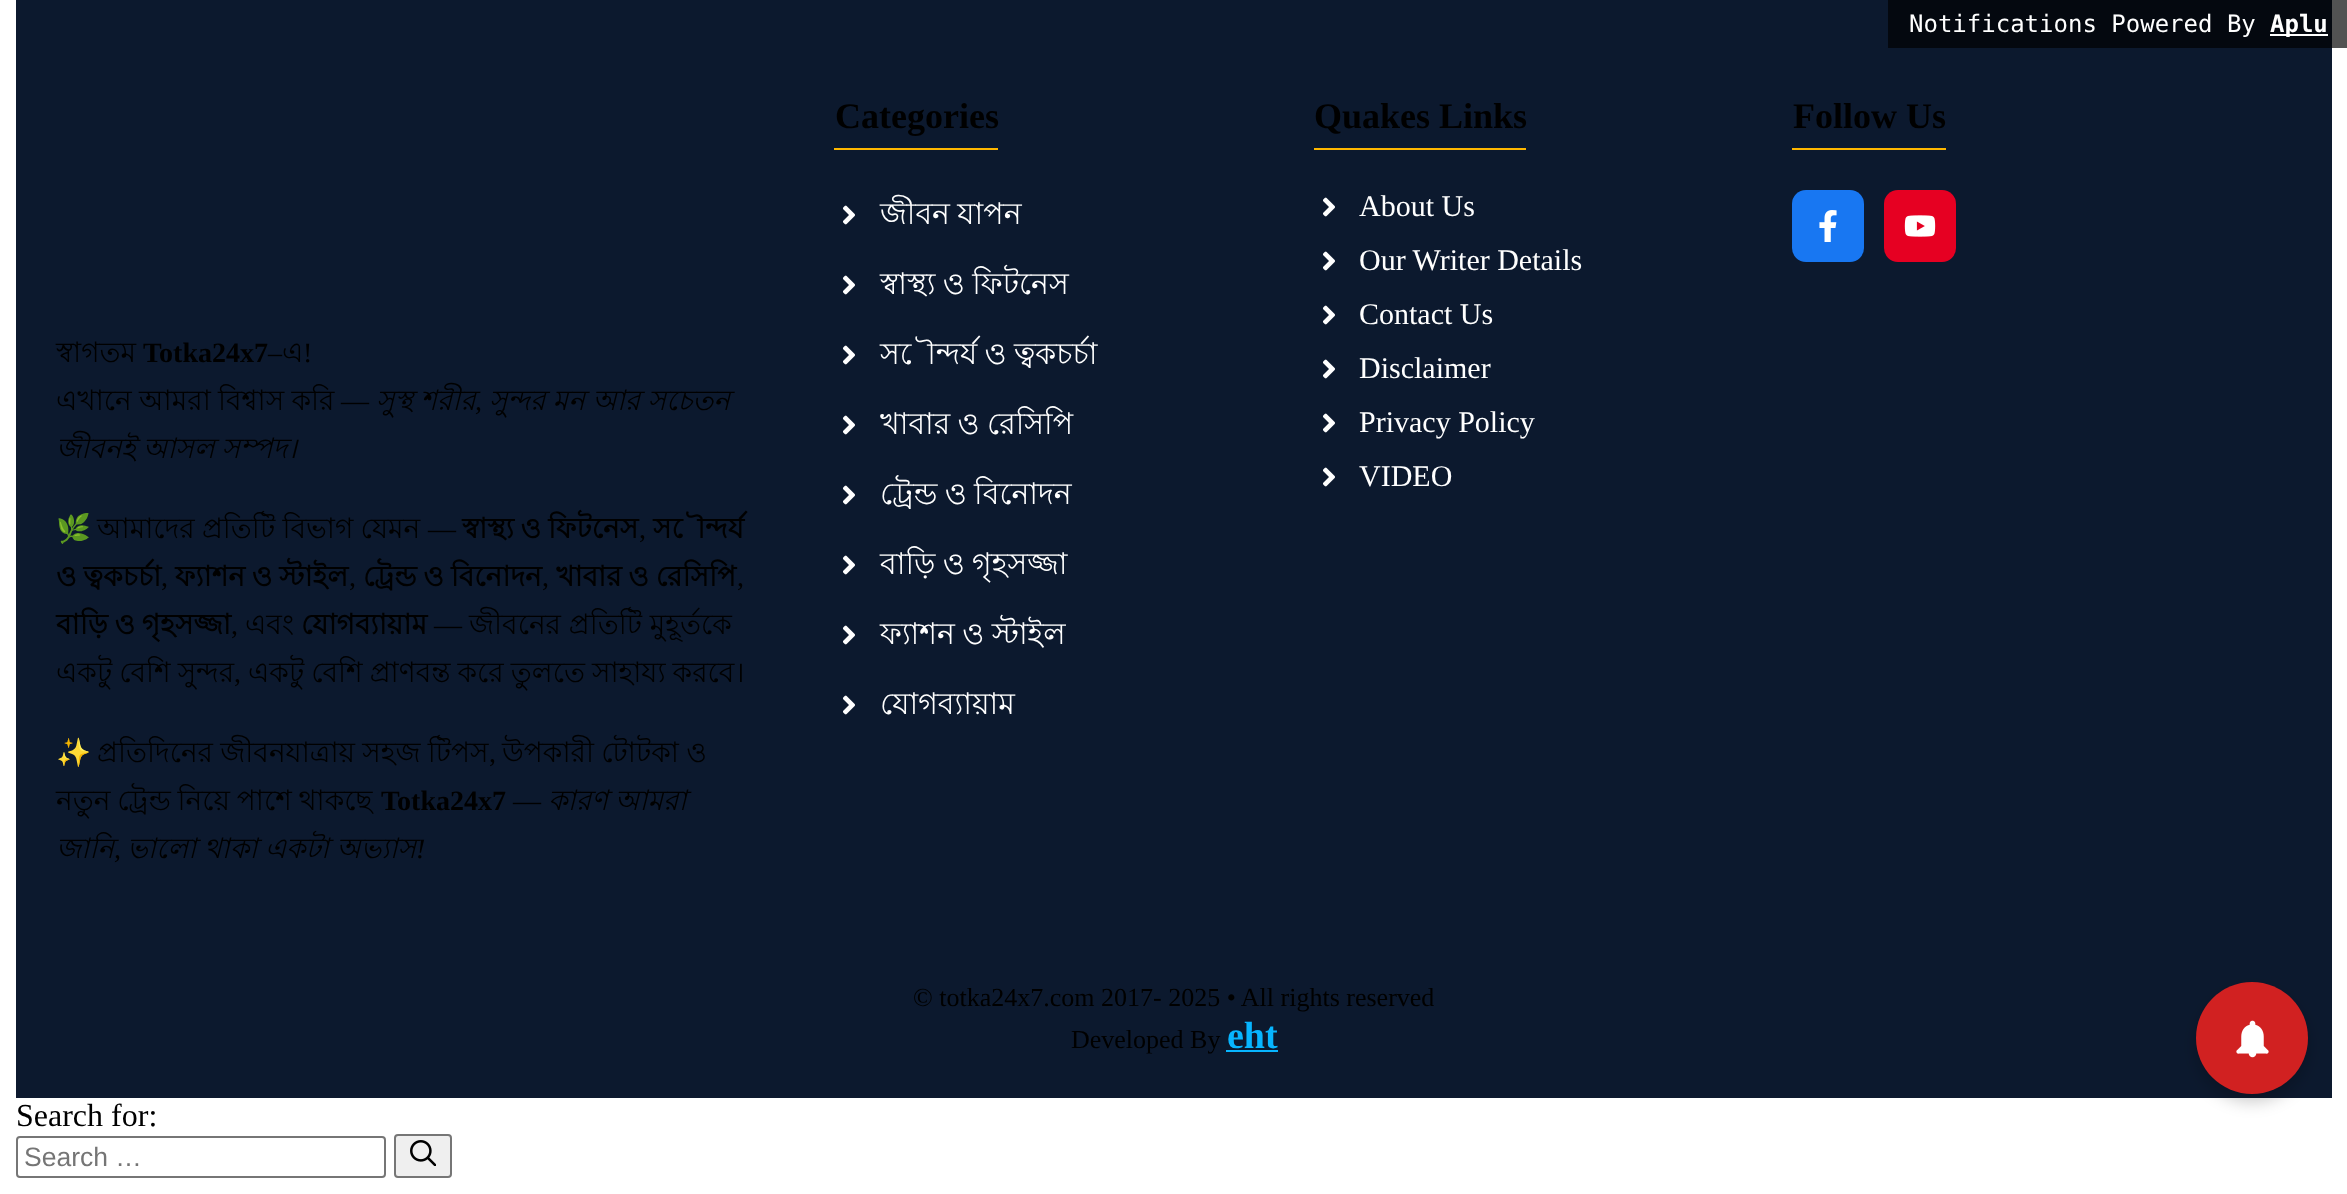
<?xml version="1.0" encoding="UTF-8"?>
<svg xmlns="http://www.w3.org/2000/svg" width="2347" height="1194">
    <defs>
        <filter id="blur1" x="-50%" y="-200%" width="200%" height="500%"><feGaussianBlur stdDeviation="8"/></filter>
    </defs>
    <rect width="100%" height="100%" fill="#FFFFFF"/>
    <rect x="2332" y="0" width="15" height="48" fill="#525252"/>
    <rect x="16" y="0" width="2316" height="1098" fill="#0C192E"/>
    <rect x="1888" y="0" width="444" height="48" fill="#04080F"/>
    <text x="1909" y="32" font-family="DejaVu Sans Mono" font-size="24" fill="#FFFFFF">Notifications Powered By</text>
    <rect x="2270" y="34" width="58" height="2" fill="#FFFFFF"/>
    <text x="2270" y="32" font-family="DejaVu Sans Mono" font-size="24" font-weight="700" fill="#FFFFFF">Aplu</text>
    <rect x="834" y="148" width="164" height="2" fill="#FFB700"/>
    <text x="835" y="128" font-family="Liberation Serif" font-size="36" font-weight="700" fill="#000000">Categories</text>
    <image x="843" y="205" width="12" height="20" href="img_01.png"/>
    <text x="880" y="224" word-spacing="-1" font-family="Lohit Bengali" font-size="30" fill="#FFFFFF">জীবন যাপন</text>
    <image x="843" y="275" width="12" height="20" href="img_01.png"/>
    <text x="880" y="294" word-spacing="-1" font-family="Lohit Bengali" font-size="30" fill="#FFFFFF">স্বাস্থ্য ও ফিটনেস</text>
    <image x="843" y="345" width="12" height="20" href="img_01.png"/>
    <text x="880" y="364" word-spacing="-1" font-family="Lohit Bengali" font-size="30" fill="#FFFFFF">সৌন্দর্য ও ত্বকচর্চা</text>
    <image x="843" y="415" width="12" height="20" href="img_01.png"/>
    <text x="880" y="434" word-spacing="-1" font-family="Lohit Bengali" font-size="30" fill="#FFFFFF">খাবার ও রেসিপি</text>
    <image x="843" y="485" width="12" height="20" href="img_01.png"/>
    <text x="880" y="504" word-spacing="-1" font-family="Lohit Bengali" font-size="30" fill="#FFFFFF">ট্রেন্ড ও বিনোদন</text>
    <image x="843" y="555" width="12" height="20" href="img_01.png"/>
    <text x="880" y="574" word-spacing="-1" font-family="Lohit Bengali" font-size="30" fill="#FFFFFF">বাড়ি ও গৃহসজ্জা</text>
    <image x="843" y="625" width="12" height="20" href="img_01.png"/>
    <text x="880" y="644" word-spacing="-1" font-family="Lohit Bengali" font-size="30" fill="#FFFFFF">ফ্যাশন ও স্টাইল</text>
    <image x="843" y="695" width="12" height="20" href="img_01.png"/>
    <text x="880" y="714" font-family="Lohit Bengali" font-size="30" fill="#FFFFFF">যোগব্যায়াম</text>
    <rect x="1314" y="148" width="212" height="2" fill="#FFB700"/>
    <text x="1314" y="128" font-family="Liberation Serif" font-size="36" font-weight="700" fill="#000000">Quakes Links</text>
    <image x="1323" y="197" width="12" height="20" href="img_01.png"/>
    <text x="1359" y="216" font-family="Liberation Serif" font-size="30" fill="#FFFFFF">About Us</text>
    <image x="1323" y="251" width="12" height="20" href="img_01.png"/>
    <text x="1359" y="270" font-family="Liberation Serif" font-size="30" fill="#FFFFFF">Our Writer Details</text>
    <image x="1323" y="305" width="12" height="20" href="img_01.png"/>
    <text x="1359" y="324" font-family="Liberation Serif" font-size="30" fill="#FFFFFF">Contact Us</text>
    <image x="1323" y="359" width="12" height="20" href="img_01.png"/>
    <text x="1359" y="378" font-family="Liberation Serif" font-size="30" fill="#FFFFFF">Disclaimer</text>
    <image x="1323" y="413" width="12" height="20" href="img_01.png"/>
    <text x="1359" y="432" font-family="Liberation Serif" font-size="30" fill="#FFFFFF">Privacy Policy</text>
    <image x="1323" y="467" width="12" height="20" href="img_01.png"/>
    <text x="1359" y="486" font-family="Liberation Serif" font-size="30" fill="#FFFFFF">VIDEO</text>
    <rect x="1792" y="148" width="154" height="2" fill="#FFB700"/>
    <text x="1793" y="128" font-family="Liberation Serif" font-size="36" font-weight="700" fill="#000000">Follow Us</text>
    <rect x="1792" y="190" width="72" height="72" rx="14" fill="#1877F2"/>
    <image x="1819" y="210" width="18" height="32" href="img_02.png"/>
    <rect x="1884" y="190" width="72" height="72" rx="14" fill="#E60022"/>
    <image x="1904" y="215" width="32" height="22" href="img_03.png"/>
    <text x="56" y="362" font-family="Lohit Bengali" font-size="28" fill="#000000">স্বাগতম</text>
    <text x="143" y="362" font-family="Liberation Serif" font-size="28" font-weight="700" fill="#000000">Totka24x7</text>
    <text x="268" y="362" font-family="Liberation Serif" font-size="28" fill="#000000">–</text>
    <text x="282" y="362" font-family="Lohit Bengali" font-size="28" fill="#000000">এ</text>
    <text x="303" y="362" font-family="Liberation Serif" font-size="28" fill="#000000">!</text>
    <text x="56" y="410" word-spacing="-0.5" font-family="Lohit Bengali" font-size="28" fill="#000000">এখানে আমরা বিশ্বাস করি</text>
    <text x="341" y="410" font-family="Liberation Serif" font-size="28" fill="#000000">—</text>
    <text x="376" y="410" word-spacing="-0.5" font-family="Lohit Bengali" font-size="28" font-style="italic" fill="#000000">সুস্থ শরীর</text>
    <text x="475" y="410" font-family="Liberation Serif" font-size="28" font-style="italic" fill="#000000">,</text>
    <text x="489" y="410" word-spacing="-0.5" font-family="Lohit Bengali" font-size="28" font-style="italic" fill="#000000">সুন্দর মন আর সচেতন</text>
    <text x="56" y="458" word-spacing="-1" font-family="Lohit Bengali" font-size="28" font-style="italic" fill="#000000">জীবনই আসল সম্পদ।</text>
    <text x="56" y="538" font-family="Noto Color Emoji" font-size="28" fill="#000000">🌿</text>
    <text x="97" y="538" word-spacing="-0.5" font-family="Lohit Bengali" font-size="28" fill="#000000">আমাদের প্রতিটি বিভাগ যেমন</text>
    <text x="428" y="538" font-family="Liberation Serif" font-size="28" fill="#000000">—</text>
    <text x="462" y="538" word-spacing="-1" font-family="Lohit Bengali" font-size="28" font-weight="700" fill="#000000">স্বাস্থ্য ও ফিটনেস</text>
    <text x="639" y="538" font-family="Liberation Serif" font-size="28" fill="#000000">,</text>
    <text x="653" y="538" font-family="Lohit Bengali" font-size="28" font-weight="700" fill="#000000">সৌন্দর্য</text>
    <text x="56" y="586" word-spacing="-1" font-family="Lohit Bengali" font-size="28" font-weight="700" fill="#000000">ও ত্বকচর্চা</text>
    <text x="161" y="586" font-family="Liberation Serif" font-size="28" fill="#000000">,</text>
    <text x="175" y="586" word-spacing="-1" font-family="Lohit Bengali" font-size="28" font-weight="700" fill="#000000">ফ্যাশন ও স্টাইল</text>
    <text x="349" y="586" font-family="Liberation Serif" font-size="28" fill="#000000">,</text>
    <text x="363" y="586" word-spacing="-1" font-family="Lohit Bengali" font-size="28" font-weight="700" fill="#000000">ট্রেন্ড ও বিনোদন</text>
    <text x="542" y="586" font-family="Liberation Serif" font-size="28" fill="#000000">,</text>
    <text x="556" y="586" word-spacing="-1" font-family="Lohit Bengali" font-size="28" font-weight="700" fill="#000000">খাবার ও রেসিপি</text>
    <text x="737" y="586" font-family="Liberation Serif" font-size="28" fill="#000000">,</text>
    <text x="56" y="634" word-spacing="-1" font-family="Lohit Bengali" font-size="28" font-weight="700" fill="#000000">বাড়ি ও গৃহসজ্জা</text>
    <text x="245" y="634" font-family="Lohit Bengali" font-size="28" fill="#000000">এবং</text>
    <text x="301" y="634" font-family="Lohit Bengali" font-size="28" font-weight="700" fill="#000000">যোগব্যায়াম</text>
    <text x="434" y="634" font-family="Liberation Serif" font-size="28" fill="#000000">—</text>
    <text x="469" y="634" font-family="Lohit Bengali" font-size="28" fill="#000000">জীবনের প্রতিটি মুহূর্তকে</text>
    <text x="231" y="634" font-family="Liberation Serif" font-size="28" fill="#000000">,</text>
    <text x="56" y="682" word-spacing="-0.75" font-family="Lohit Bengali" font-size="28" fill="#000000">একটু বেশি সুন্দর</text>
    <text x="234" y="682" font-family="Liberation Serif" font-size="28" fill="#000000">,</text>
    <text x="248" y="682" word-spacing="-0.75" font-family="Lohit Bengali" font-size="28" fill="#000000">একটু বেশি প্রাণবন্ত করে তুলতে সাহায্য করবে।</text>
    <text x="56" y="762" font-family="Noto Color Emoji" font-size="28" fill="#000000">✨</text>
    <text x="97" y="762" word-spacing="-0.5" font-family="Lohit Bengali" font-size="28" fill="#000000">প্রতিদিনের জীবনযাত্রায় সহজ টিপস</text>
    <text x="489" y="762" font-family="Liberation Serif" font-size="28" fill="#000000">,</text>
    <text x="502" y="762" word-spacing="-0.5" font-family="Lohit Bengali" font-size="28" fill="#000000">উপকারী টোটকা ও</text>
    <text x="56" y="810" word-spacing="-1" font-family="Lohit Bengali" font-size="28" fill="#000000">নতুন ট্রেন্ড নিয়ে পাশে থাকছে</text>
    <text x="381" y="810" font-family="Liberation Serif" font-size="28" font-weight="700" fill="#000000">Totka24x7</text>
    <text x="513" y="810" font-family="Liberation Serif" font-size="28" fill="#000000">—</text>
    <text x="548" y="810" word-spacing="-1" font-family="Lohit Bengali" font-size="28" font-style="italic" fill="#000000">কারণ আমরা</text>
    <text x="56" y="858" font-family="Lohit Bengali" font-size="28" font-style="italic" fill="#000000">জানি</text>
    <text x="127" y="858" word-spacing="-0.5" font-family="Lohit Bengali" font-size="28" font-style="italic" fill="#000000">ভালো থাকা একটা অভ্যাস</text>
    <text x="114" y="858" font-family="Liberation Serif" font-size="28" font-style="italic" fill="#000000">,</text>
    <text x="416" y="858" font-family="Liberation Serif" font-size="28" font-style="italic" fill="#000000">!</text>
    <text x="913" y="1006" font-family="Liberation Serif" font-size="26" fill="#000000">© totka24x7.com 2017- 2025 • All rights reserved</text>
    <text x="1071" y="1048" font-family="Liberation Serif" font-size="26" fill="#000000">Developed By</text>
    <text x="1227" y="1048" font-family="Liberation Serif" font-size="38" font-weight="700" fill="#07B5FF">eht</text>
    <rect x="1226" y="1050" width="52" height="2" fill="#07B5FF"/>
    <rect x="2196" y="990" width="112" height="112" rx="56" fill="#000000" fill-opacity="0.2" filter="url(#blur1)"/>
    <circle cx="2252" cy="1038" r="56" fill="#D12121"/>
    <image x="2236" y="1020" width="33" height="38" href="img_04.png"/>
    <text x="16" y="1126" font-family="Liberation Serif" font-size="32" fill="#000000">Search for:</text>
    <rect x="17" y="1137" width="368" height="40" rx="3" fill="none" stroke="#767676" stroke-width="2"/>
    <text x="24" y="1166" font-family="Liberation Sans" font-size="26.5" fill="#757575">Search …</text>
    <rect x="395" y="1135" width="56" height="42" rx="3" fill="#EFEFEF" stroke="#767676" stroke-width="2"/>
    <image x="410" y="1140" width="26" height="26" href="img_05.png"/>
</svg>
